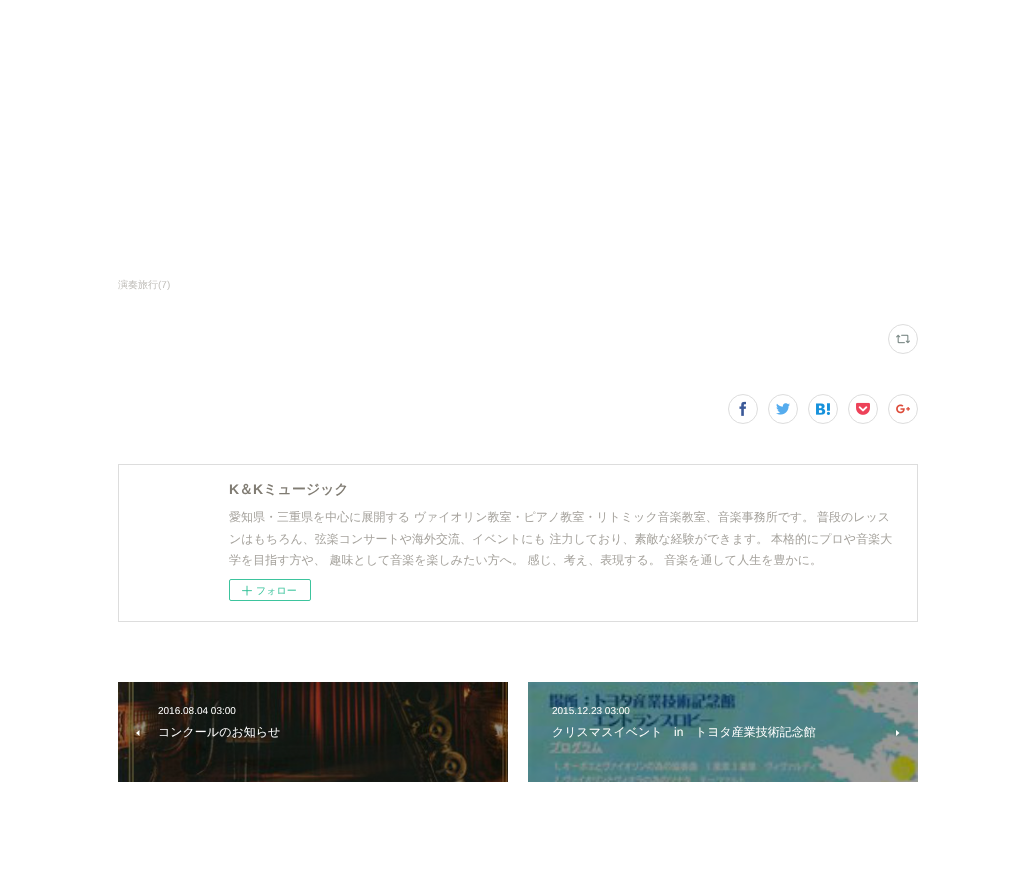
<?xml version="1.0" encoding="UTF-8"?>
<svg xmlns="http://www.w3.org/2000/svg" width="1035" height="894">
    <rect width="100%" height="100%" fill="#FFFFFF"/>
    <text x="118" y="288" font-family="WenQuanYi Zen Hei" font-size="10" font-weight="500" fill="#C0BEB9">演奏旅行</text>
    <text x="158" y="288" font-family="Liberation Sans" font-size="10" fill="#C0BEB9">(7)</text>
    <circle cx="903" cy="339" r="14.5" fill="none" stroke="#DDDDDD"/>
    <image x="896" y="334" width="14" height="10" href="img_01.png"/>
    <circle cx="743" cy="409" r="14.5" fill="none" stroke="#DDDDDD"/>
    <image x="739" y="401" width="7" height="15" href="img_02.png"/>
    <circle cx="783" cy="409" r="14.5" fill="none" stroke="#DDDDDD"/>
    <image x="776" y="403" width="14" height="12" href="img_03.png"/>
    <circle cx="823" cy="409" r="14.5" fill="none" stroke="#DDDDDD"/>
    <image x="816" y="403" width="14" height="12" href="img_04.png"/>
    <circle cx="863" cy="409" r="14.5" fill="none" stroke="#DDDDDD"/>
    <image x="856" y="402" width="14" height="13" href="img_05.png"/>
    <circle cx="903" cy="409" r="14.5" fill="none" stroke="#DDDDDD"/>
    <image x="896" y="404" width="14" height="10" href="img_06.png"/>
    <rect x="118.5" y="464.5" width="799" height="157" fill="none" stroke="#DDDDDD"/>
    <text x="229" y="494" font-family="Liberation Sans" font-size="14" font-weight="700" fill="#807C73">K</text>
    <text x="239" y="494" font-family="WenQuanYi Zen Hei" font-size="14" font-weight="700" fill="#807C73">＆</text>
    <text x="253" y="494" font-family="Liberation Sans" font-size="14" font-weight="700" fill="#807C73">K</text>
    <text x="263" y="494" font-family="WenQuanYi Zen Hei" font-size="14" font-weight="700" fill="#807C73">ミュージック</text>
    <text x="229" y="521" font-family="WenQuanYi Zen Hei" font-size="12" font-weight="500" fill="#A6A39D">愛知県・三重県を中心に展開する ヴァイオリン教室・ピアノ教室・リトミック音楽教室、音楽事務所です。</text>
    <text x="817" y="521" font-family="WenQuanYi Zen Hei" font-size="12" font-weight="500" fill="#A6A39D">普段のレッス</text>
    <text x="229" y="543" font-family="WenQuanYi Zen Hei" font-size="12" font-weight="500" fill="#A6A39D">ンはもちろん、弦楽コンサートや海外交流、イベントにも 注力しており、素敵な経験ができます。</text>
    <text x="771" y="543" font-family="WenQuanYi Zen Hei" font-size="12" font-weight="500" fill="#A6A39D">本格的にプロや音楽大</text>
    <text x="229" y="564" font-family="WenQuanYi Zen Hei" font-size="12" font-weight="500" fill="#A6A39D">学を目指す方や、 趣味として音楽を楽しみたい方へ。 感じ、考え、表現する。 音楽を通して人生を豊かに。</text>
    <rect x="229.5" y="579.5" width="81" height="21" rx="1.5" fill="none" stroke="#3DC49D"/>
    <image x="242" y="585" width="10" height="11" href="img_07.png"/>
    <text x="256" y="594" font-family="WenQuanYi Zen Hei" font-size="10" font-weight="500" fill="#3DC49D">フォロー</text>
    <image x="118" y="682" width="390" height="100" href="img_08.png"/>
    <text x="158" y="714" font-family="Liberation Sans" font-size="10" fill="#FFFFFF">2016.08.04 03:00</text>
    <path d="M 139.5 736 V 730 L 136 733 Z" fill="#FFFFFF"/>
    <text x="158" y="736" font-family="WenQuanYi Zen Hei" font-size="12" font-weight="500" fill="#FFFFFF">コンクールのお知らせ</text>
    <image x="528" y="682" width="390" height="100" href="img_09.png"/>
    <text x="552" y="714" font-family="Liberation Sans" font-size="10" fill="#FFFFFF">2015.12.23 03:00</text>
    <text x="552" y="736" font-family="WenQuanYi Zen Hei" font-size="12" font-weight="500" fill="#FFFFFF">クリスマスイベント</text>
    <text x="674" y="736" font-family="Liberation Sans" font-size="12" fill="#FFFFFF">in</text>
    <text x="695" y="736" font-family="WenQuanYi Zen Hei" font-size="12" font-weight="500" fill="#FFFFFF">トヨタ産業技術記念館</text>
    <path d="M 896 730 V 736 L 899.5 733 Z" fill="#FFFFFF"/>
</svg>
